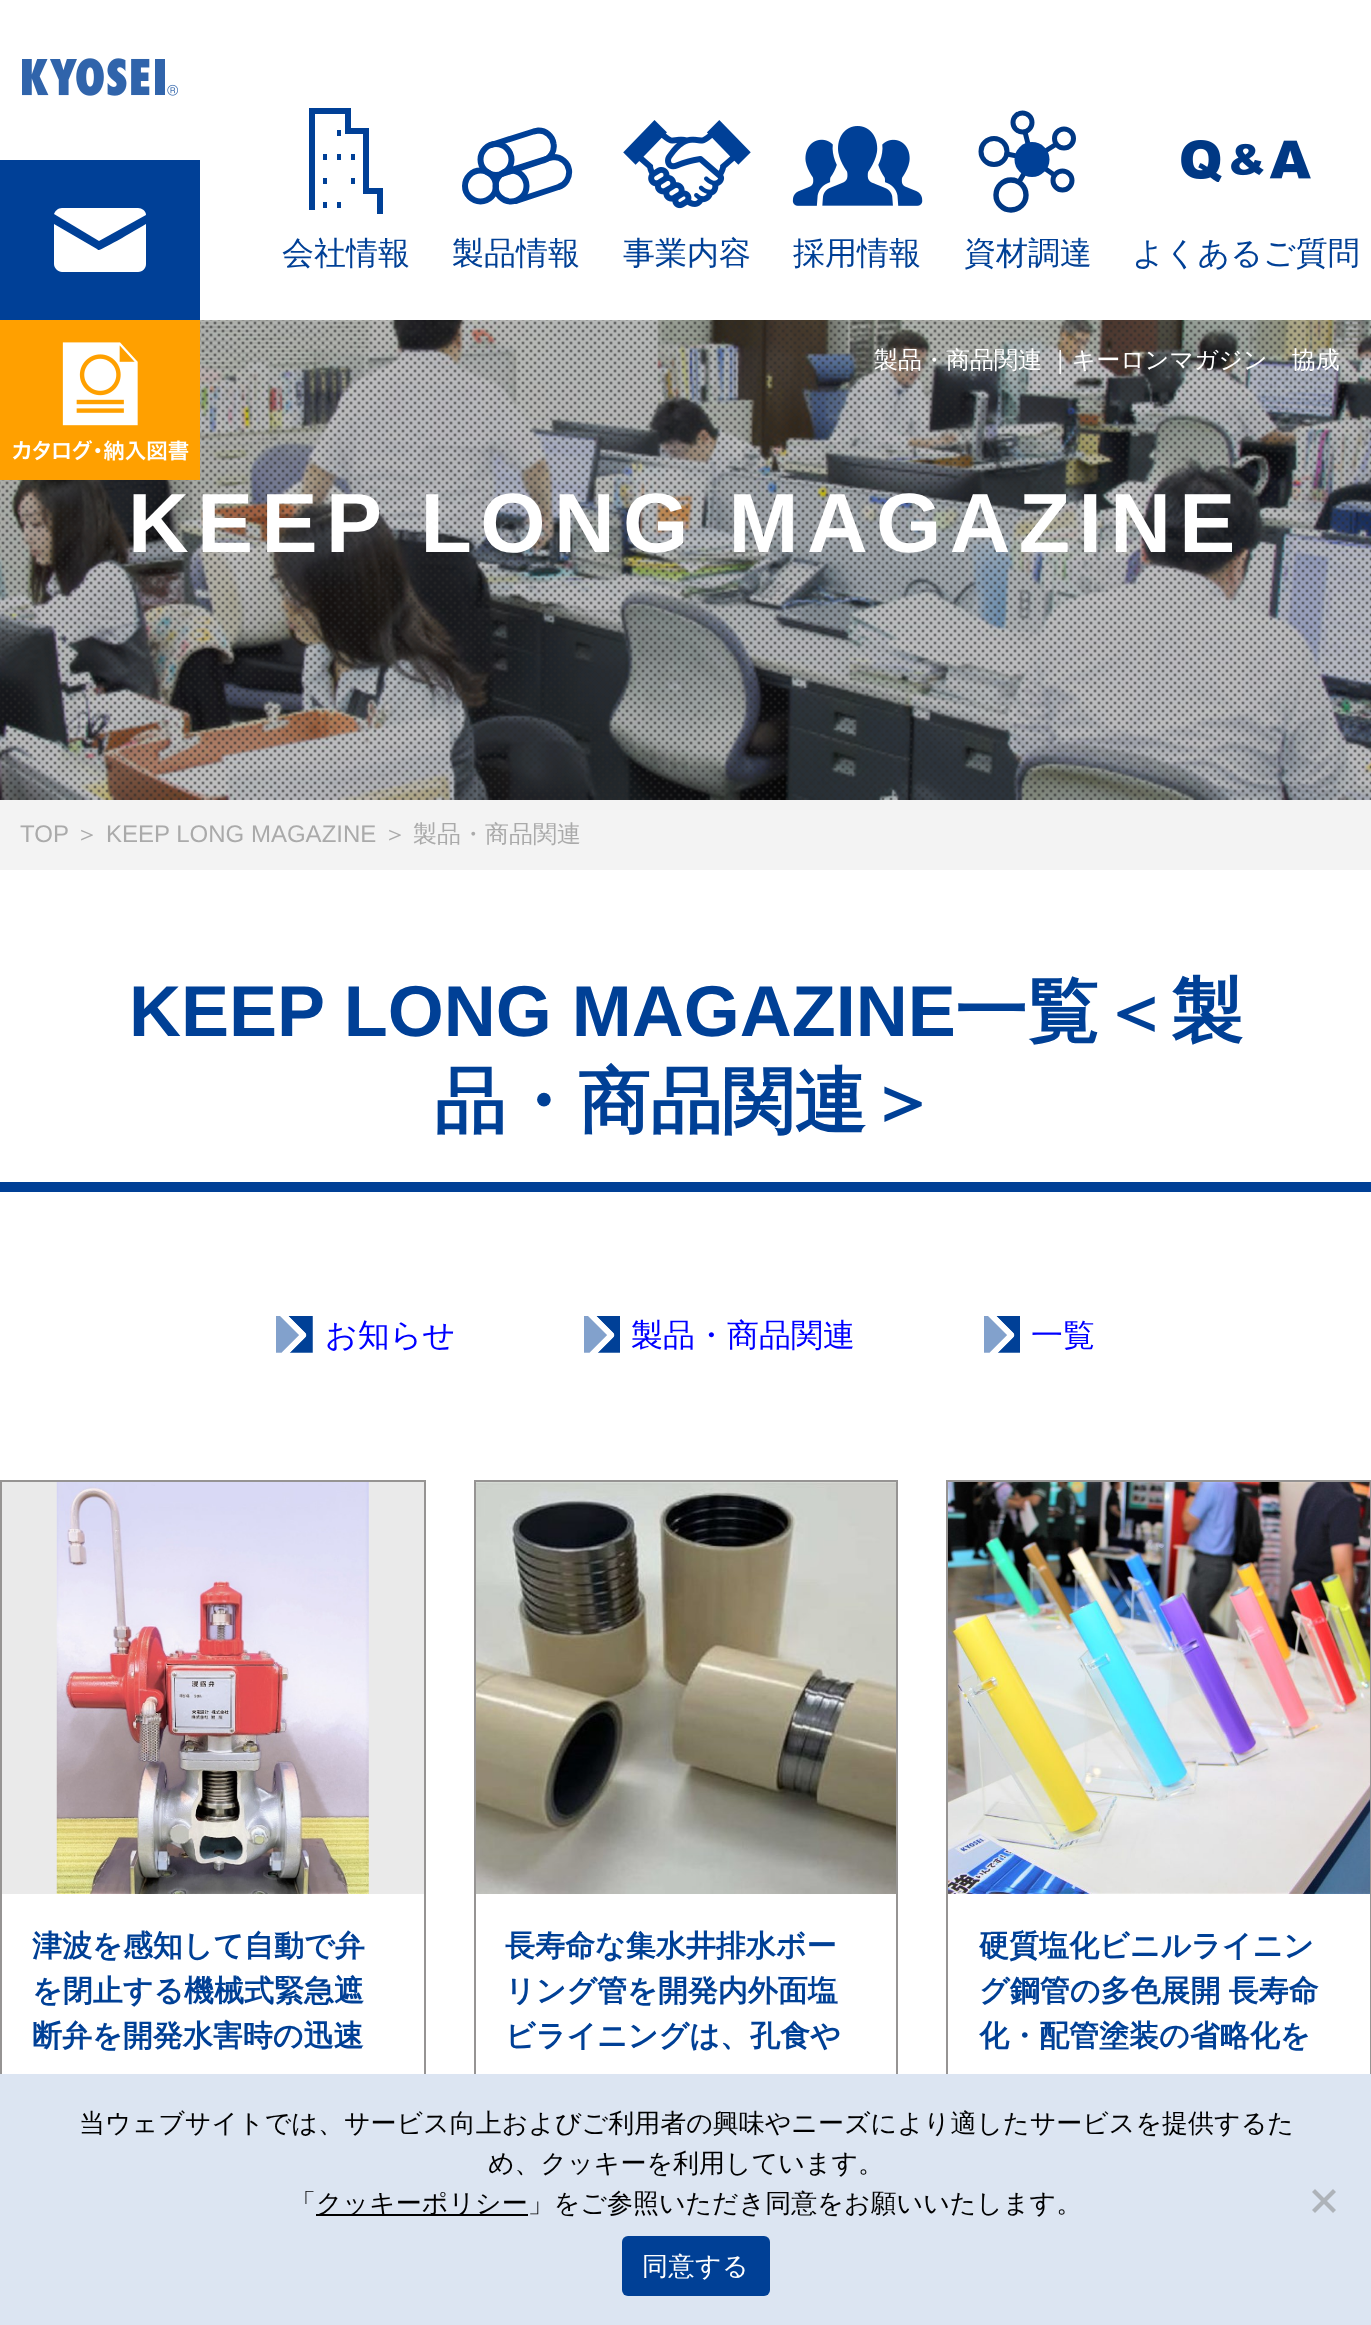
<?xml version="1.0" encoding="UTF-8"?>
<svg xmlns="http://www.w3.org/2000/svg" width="1371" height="2325">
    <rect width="100%" height="100%" fill="#FFFFFF"/>
    <image x="22" y="58" width="156" height="38" href="img_01.png"/>
    <rect x="0" y="160" width="200" height="160" fill="#004097"/>
    <path d="M 146 215 C 146 211 142 208 138 208 H 62 C 58 208 55 211 54 214 L 99 241 Z" fill="#FFFFFF"/>
    <path d="M 99 250 C 98 250 98 250 97 249 L 54 224 V 264 C 54 268 58 272 62 272 H 138 C 143 272 146 268 146 264 V 224 C 141 227 102 250 99 250 Z" fill="#FFFFFF"/>
    <image x="0" y="320" width="1371" height="480" href="img_06.png"/>
    <image x="0" y="320" width="1371" height="480" href="img_07.png"/>
    <image x="0" y="320" width="200" height="160" href="img_02.png"/>
    <rect x="323" y="154" width="4" height="6" fill="#004097"/>
    <rect x="323" y="178" width="4" height="6" fill="#004097"/>
    <rect x="323" y="202" width="4" height="6" fill="#004097"/>
    <rect x="337" y="130" width="4" height="6" fill="#004097"/>
    <rect x="337" y="154" width="4" height="6" fill="#004097"/>
    <rect x="337" y="202" width="4" height="6" fill="#004097"/>
    <rect x="351" y="154" width="4" height="6" fill="#004097"/>
    <rect x="351" y="178" width="4" height="6" fill="#004097"/>
    <path d="M 312 210 V 111 H 348 V 131 H 366 V 191 H 380 V 214" fill="none" stroke="#004097" stroke-width="6"/>
    <text x="282" y="264" font-family="WenQuanYi Zen Hei" font-size="32" font-weight="500" fill="#004096">会社情報</text>
    <path d="M 500.5 174.5 L 543 160.5 C 550.5 158.5 555 151 553.5 143.5 C 552.5 136 546 130.5 538.5 130.5 L 533.5 131.5 L 491 145" fill="none" stroke="#004097" stroke-width="6" stroke-linecap="round" stroke-linejoin="round"/>
    <path d="M 516 201 L 558.5 187 C 565.5 185 570 177.5 569 170 C 568 162.5 561.5 157 553.5 157 L 549 158 L 506.5 171.5" fill="none" stroke="#004097" stroke-width="6" stroke-linecap="round" stroke-linejoin="round"/>
    <circle cx="480.5" cy="186" r="15.5" fill="none" stroke="#004097" stroke-width="6"/>
    <circle cx="511" cy="186" r="15.5" fill="none" stroke="#004097" stroke-width="6"/>
    <circle cx="496" cy="159.5" r="15.5" fill="none" stroke="#004097" stroke-width="6"/>
    <text x="452" y="264" font-family="WenQuanYi Zen Hei" font-size="32" font-weight="500" fill="#004096">製品情報</text>
    <image x="623" y="120" width="128" height="89" href="img_03.png"/>
    <text x="623" y="264" font-family="WenQuanYi Zen Hei" font-size="32" font-weight="500" fill="#004096">事業内容</text>
    <image x="792" y="126" width="131" height="80" href="img_04.png"/>
    <text x="793" y="264" font-family="WenQuanYi Zen Hei" font-size="32" font-weight="500" fill="#004096">採用情報</text>
    <path d="M 1032 159.5 L 1056.5 144 M 1032 159.5 L 1055 175.5 M 1018.5 183 L 1032 159.5 M 1007 154 L 1035.5 160 M 1032 159.5 L 1025 132" fill="none" stroke="#003884" stroke-width="5"/>
    <circle cx="1022.5" cy="122.5" r="9.5" fill="none" stroke="#003884" stroke-width="5"/>
    <circle cx="1062.5" cy="180.5" r="9.5" fill="none" stroke="#003884" stroke-width="5"/>
    <circle cx="1064" cy="138.5" r="9.5" fill="none" stroke="#003884" stroke-width="5"/>
    <circle cx="1011" cy="195" r="15" fill="none" stroke="#003884" stroke-width="5.4"/>
    <circle cx="994" cy="151.5" r="13" fill="none" stroke="#003884" stroke-width="5"/>
    <circle cx="1032" cy="159.5" r="17.5" fill="#004097"/>
    <text x="964" y="264" font-family="WenQuanYi Zen Hei" font-size="32" font-weight="500" fill="#004096">資材調達</text>
    <image x="1181" y="140" width="130" height="42" href="img_05.png"/>
    <text x="1132" y="264" font-family="WenQuanYi Zen Hei" font-size="32" font-weight="500" fill="#004096">よくあるご質問</text>
    <text x="874" y="368" word-spacing="-1" font-family="WenQuanYi Zen Hei" font-size="24" font-weight="500" fill="#FFFFFF">製品・商品関連 ｜キーロンマガジン　協成</text>
    <text x="128" y="552" font-family="Liberation Sans" font-size="84" font-weight="700" letter-spacing="8.4" fill="#FFFFFF">KEEP LONG MAGAZINE</text>
    <rect x="0" y="800" width="1371" height="70" fill="#F3F3F3"/>
    <text x="20" y="842" font-family="Liberation Sans" font-size="24" fill="#AAAAAA">TOP</text>
    <text x="75" y="842" font-family="WenQuanYi Zen Hei" font-size="24" font-weight="500" fill="#AAAAAA">＞</text>
    <text x="106" y="842" font-family="Liberation Sans" font-size="24" fill="#AAAAAA">KEEP LONG MAGAZINE</text>
    <text x="383" y="842" font-family="WenQuanYi Zen Hei" font-size="24" font-weight="500" fill="#AAAAAA">＞</text>
    <text x="413" y="842" font-family="WenQuanYi Zen Hei" font-size="24" font-weight="500" fill="#AAAAAA">製品・商品関連</text>
    <rect x="0" y="1182" width="1371" height="10" fill="#004096"/>
    <text x="129" y="1036" font-family="Liberation Sans" font-size="72" font-weight="700" fill="#004096">KEEP LONG MAGAZINE</text>
    <text x="955" y="1036" font-family="WenQuanYi Zen Hei" font-size="72" font-weight="700" fill="#004096">一覧＜製</text>
    <text x="434" y="1126" font-family="WenQuanYi Zen Hei" font-size="72" font-weight="700" fill="#004096">品・商品関連＞</text>
    <image x="276" y="1316" width="37" height="37" href="img_08.png"/>
    <text x="325" y="1346" font-family="WenQuanYi Zen Hei" font-size="32" font-weight="500" fill="#0000FF">お知らせ</text>
    <image x="584" y="1316" width="36" height="37" href="img_09.png"/>
    <text x="631" y="1346" font-family="WenQuanYi Zen Hei" font-size="32" font-weight="500" fill="#0000FF">製品・商品関連</text>
    <image x="984" y="1316" width="36" height="37" href="img_09.png"/>
    <text x="1031" y="1346" font-family="WenQuanYi Zen Hei" font-size="32" font-weight="500" fill="#0000FF">一覧</text>
    <rect x="1" y="1481" width="424" height="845" fill="none" stroke="#969493" stroke-width="2"/>
    <rect x="2" y="1482" width="422" height="412" fill="#EAEAEA"/>
    <image x="56" y="1482" width="313" height="412" href="img_10.png"/>
    <text font-family="WenQuanYi Zen Hei" font-size="30" font-weight="700" fill="#004096">
        <tspan x="32" y="1956">津波を感知して自動で弁</tspan>
        <tspan x="32" y="2001">を閉止する機械式緊急遮</tspan>
        <tspan x="32" y="2046">断弁を開発水害時の迅速</tspan>
    </text>
    <rect x="475" y="1481" width="422" height="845" fill="none" stroke="#969493" stroke-width="2"/>
    <image x="476" y="1482" width="420" height="412" href="img_11.png"/>
    <text font-family="WenQuanYi Zen Hei" font-size="30" font-weight="700" fill="#004096">
        <tspan x="505" y="1956">長寿命な集水井排水ボー</tspan>
        <tspan x="505" y="2001">リング管を開発内外面塩</tspan>
        <tspan x="505" y="2046">ビライニングは、孔食や</tspan>
    </text>
    <rect x="947" y="1481" width="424" height="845" fill="none" stroke="#969493" stroke-width="2"/>
    <image x="948" y="1482" width="422" height="412" href="img_12.png"/>
    <text font-family="WenQuanYi Zen Hei" font-size="30" font-weight="700" fill="#004096">
        <tspan x="979" y="1956">硬質塩化ビニルライニン</tspan>
        <tspan x="979" y="2001" word-spacing="-1">グ鋼管の多色展開 長寿命</tspan>
        <tspan x="979" y="2046">化・配管塗装の省略化を</tspan>
    </text>
    <rect x="0" y="2074" width="1371" height="251" fill="#DCE5F2"/>
    <text x="79" y="2132" font-family="WenQuanYi Zen Hei" font-size="26" font-weight="500" fill="#000000">当ウェブサイトでは、サービス向上およびご利用者の興味やニーズにより適したサービスを提供するた</text>
    <text x="488" y="2172" font-family="WenQuanYi Zen Hei" font-size="26" font-weight="500" fill="#000000">め、クッキーを利用しています。</text>
    <text x="290" y="2212" font-family="WenQuanYi Zen Hei" font-size="26" font-weight="500" fill="#000000">「</text>
    <rect x="316" y="2214" width="212" height="2" fill="#000000"/>
    <text x="316" y="2212" font-family="WenQuanYi Zen Hei" font-size="26" font-weight="500" fill="#000000">クッキーポリシー」をご参照いただき同意をお願いいたします。</text>
    <path d="M 1333 2189 L 1336 2192 L 1315 2213 L 1312 2210 Z" fill="#AEB3B9"/>
    <path d="M 1312 2192 L 1315 2189 L 1336 2210 L 1333 2213 Z" fill="#AEB3B9"/>
    <rect x="622" y="2236" width="148" height="60" rx="6" fill="#004096"/>
    <text x="642" y="2275" font-family="WenQuanYi Zen Hei" font-size="26" font-weight="500" letter-spacing="0.5" fill="#FFFFFF">同意する</text>
</svg>
